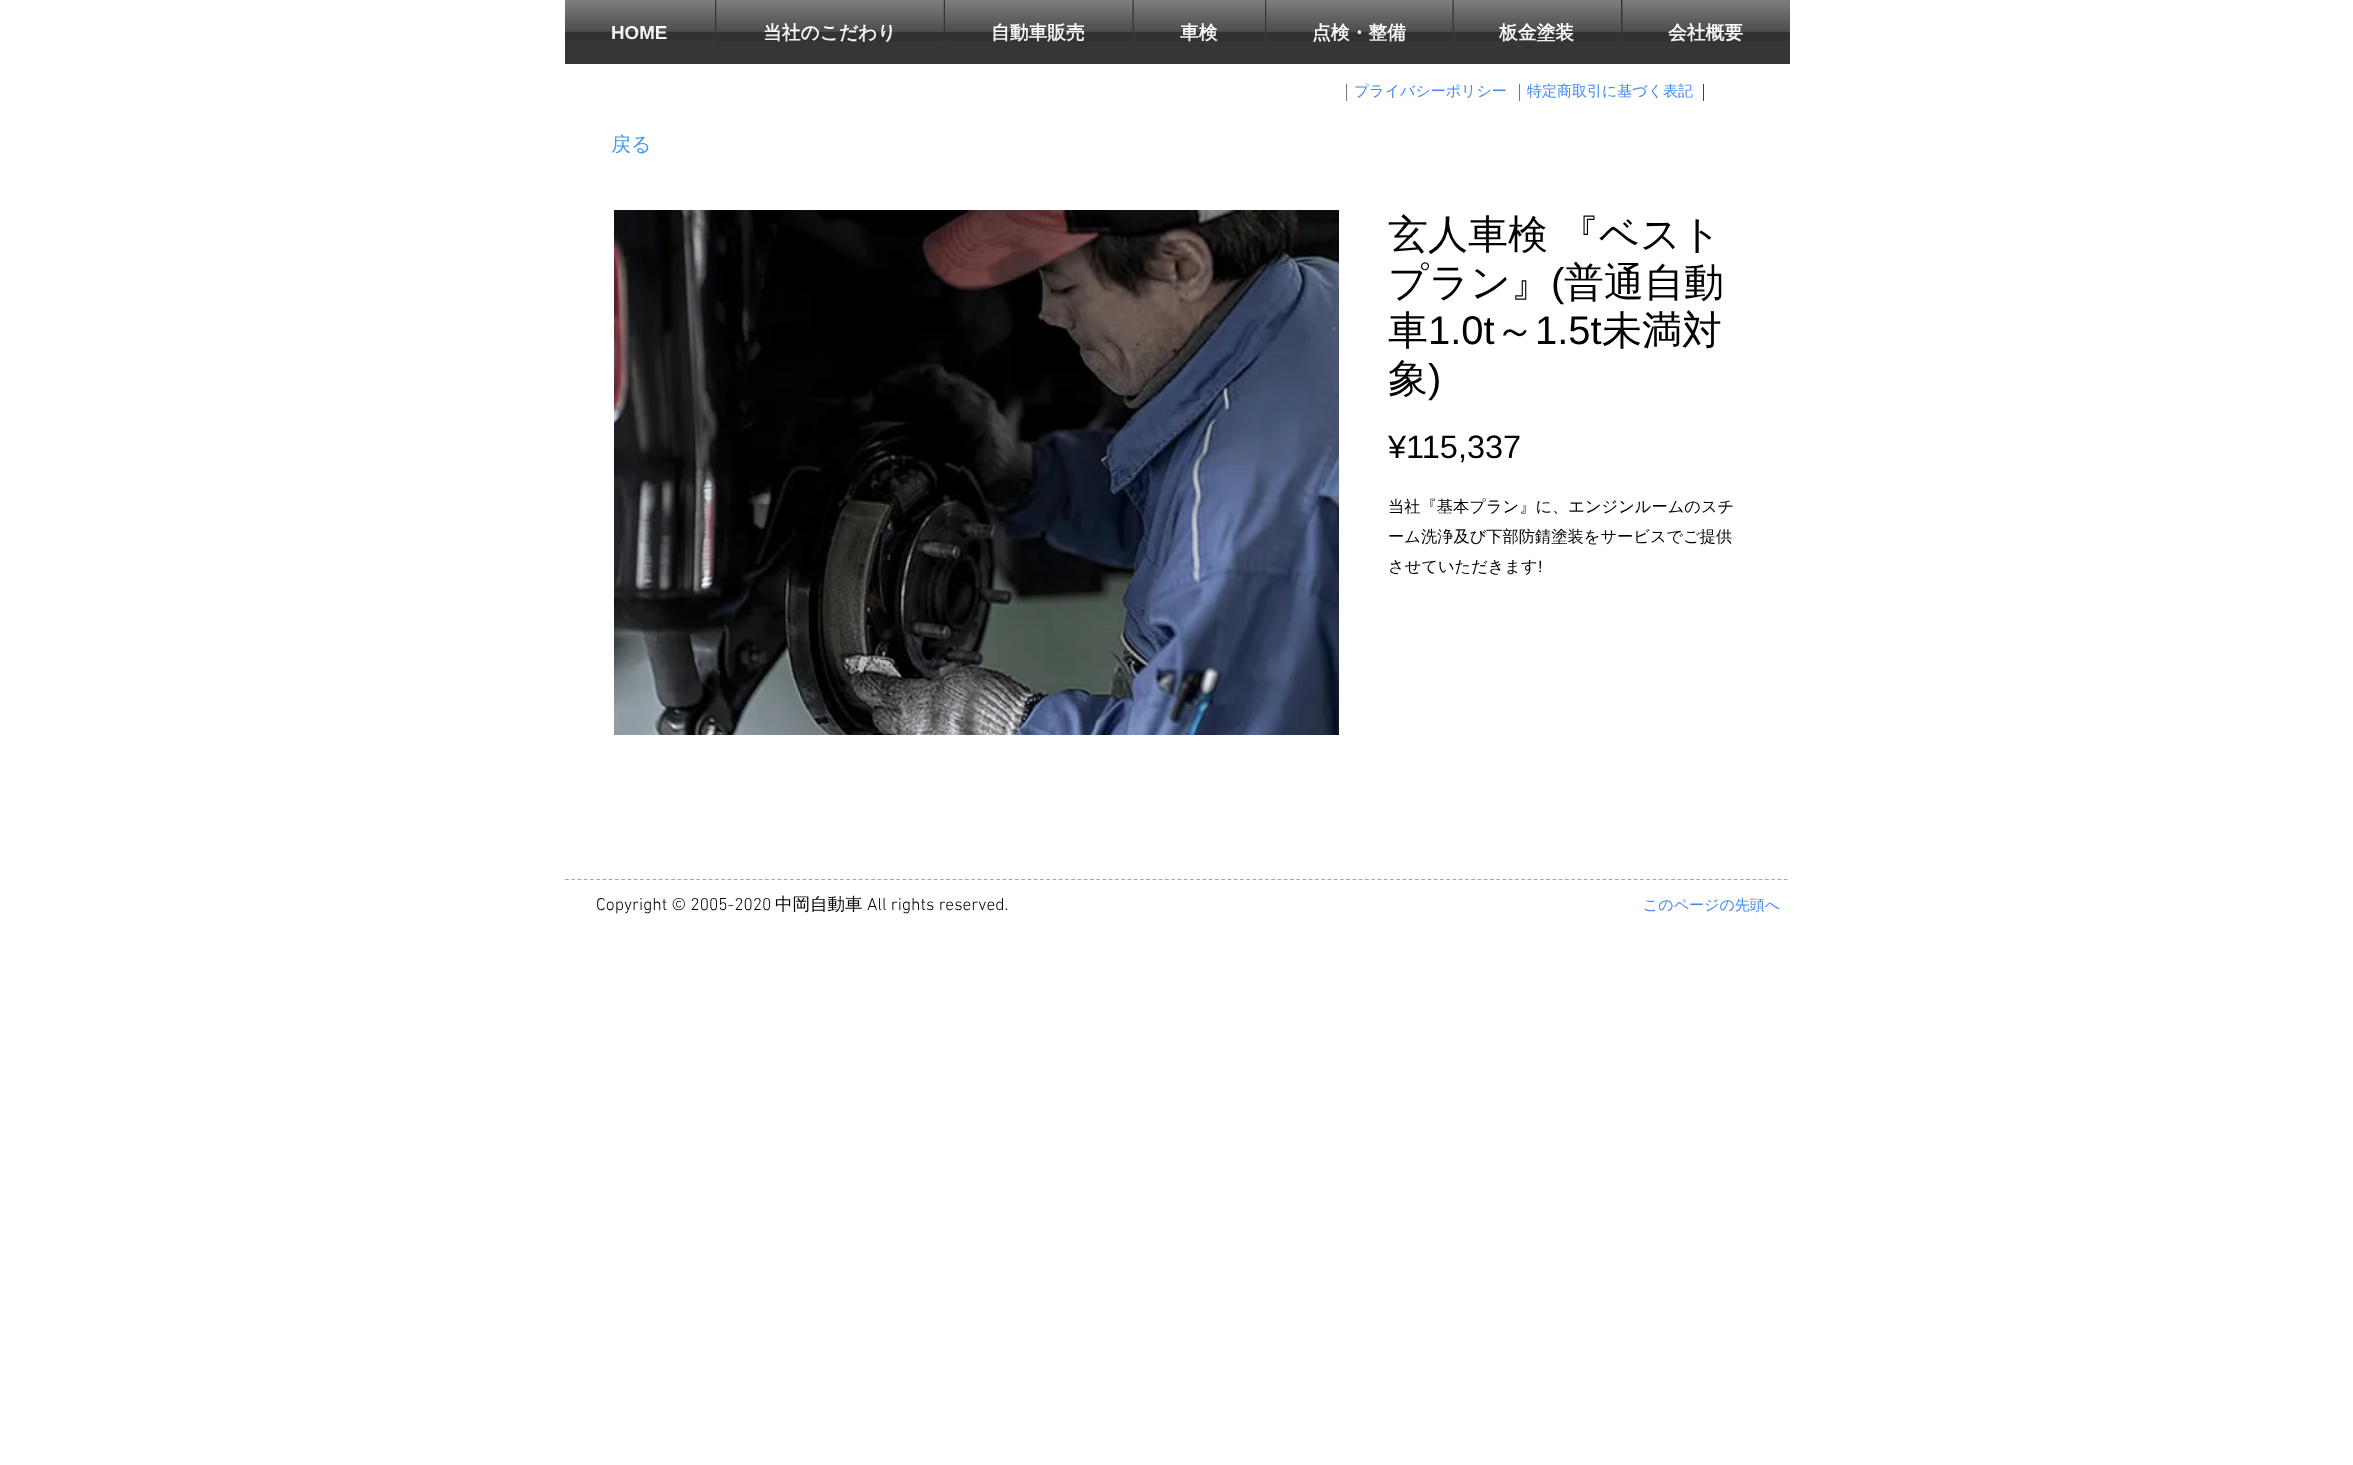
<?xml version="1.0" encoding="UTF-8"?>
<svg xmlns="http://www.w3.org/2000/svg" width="2353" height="1465">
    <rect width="100%" height="100%" fill="#FFFFFF"/>
    <rect x="565" y="0" width="1225" height="64" fill="#363636"/>
    <text x="611" y="39" font-family="Liberation Sans" font-size="18.75" font-weight="700" fill="#FFFFFF">HOME</text>
    <image x="565" y="0" width="150" height="40" href="img_01.png"/>
    <text x="763" y="39" font-family="WenQuanYi Zen Hei" font-size="18.75" font-weight="700" fill="#FFFFFF">当社のこだわり</text>
    <image x="716" y="0" width="228" height="42" href="img_02.png"/>
    <text x="991" y="39" font-family="WenQuanYi Zen Hei" font-size="18.75" font-weight="700" fill="#FFFFFF">自動車販売</text>
    <image x="945" y="0" width="188" height="42" href="img_03.png"/>
    <text x="1180" y="39" font-family="WenQuanYi Zen Hei" font-size="18.75" font-weight="700" fill="#FFFFFF">車検</text>
    <image x="1133" y="0" width="132" height="42" href="img_04.png"/>
    <text x="1312" y="39" font-family="WenQuanYi Zen Hei" font-size="18.75" font-weight="700" fill="#FFFFFF">点検・整備</text>
    <image x="1266" y="0" width="187" height="42" href="img_05.png"/>
    <text x="1499" y="39" font-family="WenQuanYi Zen Hei" font-size="18.75" font-weight="700" fill="#FFFFFF">板金塗装</text>
    <image x="1453" y="0" width="168" height="42" href="img_06.png"/>
    <text x="1668" y="39" font-family="WenQuanYi Zen Hei" font-size="18.75" font-weight="700" fill="#FFFFFF">会社概要</text>
    <image x="1622" y="0" width="168" height="42" href="img_07.png"/>
    <rect x="1346" y="84" width="1" height="17" fill="#767676"/>
    <text x="1354" y="96" font-family="WenQuanYi Zen Hei" font-size="15" font-weight="500" fill="#4088F5">プライバシーポリシー</text>
    <rect x="1519" y="84" width="1" height="17" fill="#767676"/>
    <text x="1527" y="96" font-family="WenQuanYi Zen Hei" font-size="15" font-weight="500" fill="#4088F5">特定商取引に基づく表記</text>
    <rect x="1703" y="84" width="1" height="17" fill="#424242"/>
    <text x="611" y="151" font-family="WenQuanYi Zen Hei" font-size="20" font-weight="500" fill="#3D9BE9">戻る</text>
    <image x="614" y="210" width="725" height="525" href="img_08.png"/>
    <text font-family="WenQuanYi Zen Hei" font-size="40" font-weight="500" fill="#000000">
        <tspan x="1388" y="248" word-spacing="-1">玄人車検 『ベスト</tspan>
        <tspan x="1388" y="296">プラン』</tspan>
    </text>
    <text x="1551" y="296" font-family="Liberation Sans" font-size="40" fill="#000000">(</text>
    <text x="1564" y="296" font-family="WenQuanYi Zen Hei" font-size="40" font-weight="500" fill="#000000">普通自動</text>
    <text x="1388" y="344" font-family="WenQuanYi Zen Hei" font-size="40" font-weight="500" fill="#000000">車</text>
    <text x="1428" y="344" font-family="Liberation Sans" font-size="40" fill="#000000">1.0t</text>
    <text x="1495" y="344" font-family="WenQuanYi Zen Hei" font-size="40" font-weight="500" fill="#000000">～</text>
    <text x="1535" y="344" font-family="Liberation Sans" font-size="40" fill="#000000">1.5t</text>
    <text x="1602" y="344" font-family="WenQuanYi Zen Hei" font-size="40" font-weight="500" fill="#000000">未満対</text>
    <text x="1388" y="392" font-family="WenQuanYi Zen Hei" font-size="40" font-weight="500" fill="#000000">象</text>
    <text x="1428" y="392" font-family="Liberation Sans" font-size="40" fill="#000000">)</text>
    <text x="1388" y="458" font-family="Liberation Sans" font-size="32.5" fill="#000000">¥115,337</text>
    <text font-family="WenQuanYi Zen Hei" font-size="16.25" font-weight="500" fill="#000000">
        <tspan x="1388" y="512">当社『基本プラン』に、エンジンルームのスチ</tspan>
        <tspan x="1388" y="542">ーム洗浄及び下部防錆塗装をサービスでご提供</tspan>
        <tspan x="1388" y="572">させていただきます</tspan>
    </text>
    <text x="1538" y="572" font-family="Liberation Sans" font-size="16.25" fill="#000000">!</text>
    <path d="M 565 879.5 H 1787.5" fill="none" stroke="#A6A6A6" stroke-width="1.2" stroke-dasharray="3.75 2.5"/>
    <path d="M 565 880.5 H 1787.5" fill="none" stroke="#FFFFFF" stroke-opacity="0.5" stroke-width="1.2" stroke-dasharray="3.75 2.5"/>
    <text x="596" y="910" font-family="'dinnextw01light'" font-size="17.5" font-weight="300" fill="#000000">Copyright © 2005-2020</text>
    <text x="775" y="910" font-family="WenQuanYi Zen Hei" font-size="17.5" font-weight="500" fill="#000000">中岡自動車</text>
    <text x="867" y="910" font-family="'dinnextw01light'" font-size="17.5" font-weight="300" fill="#000000">All rights reserved.</text>
    <text x="1643" y="910" font-family="WenQuanYi Zen Hei" font-size="15" font-weight="500" fill="#4088F5">このページの先頭へ</text>
</svg>
